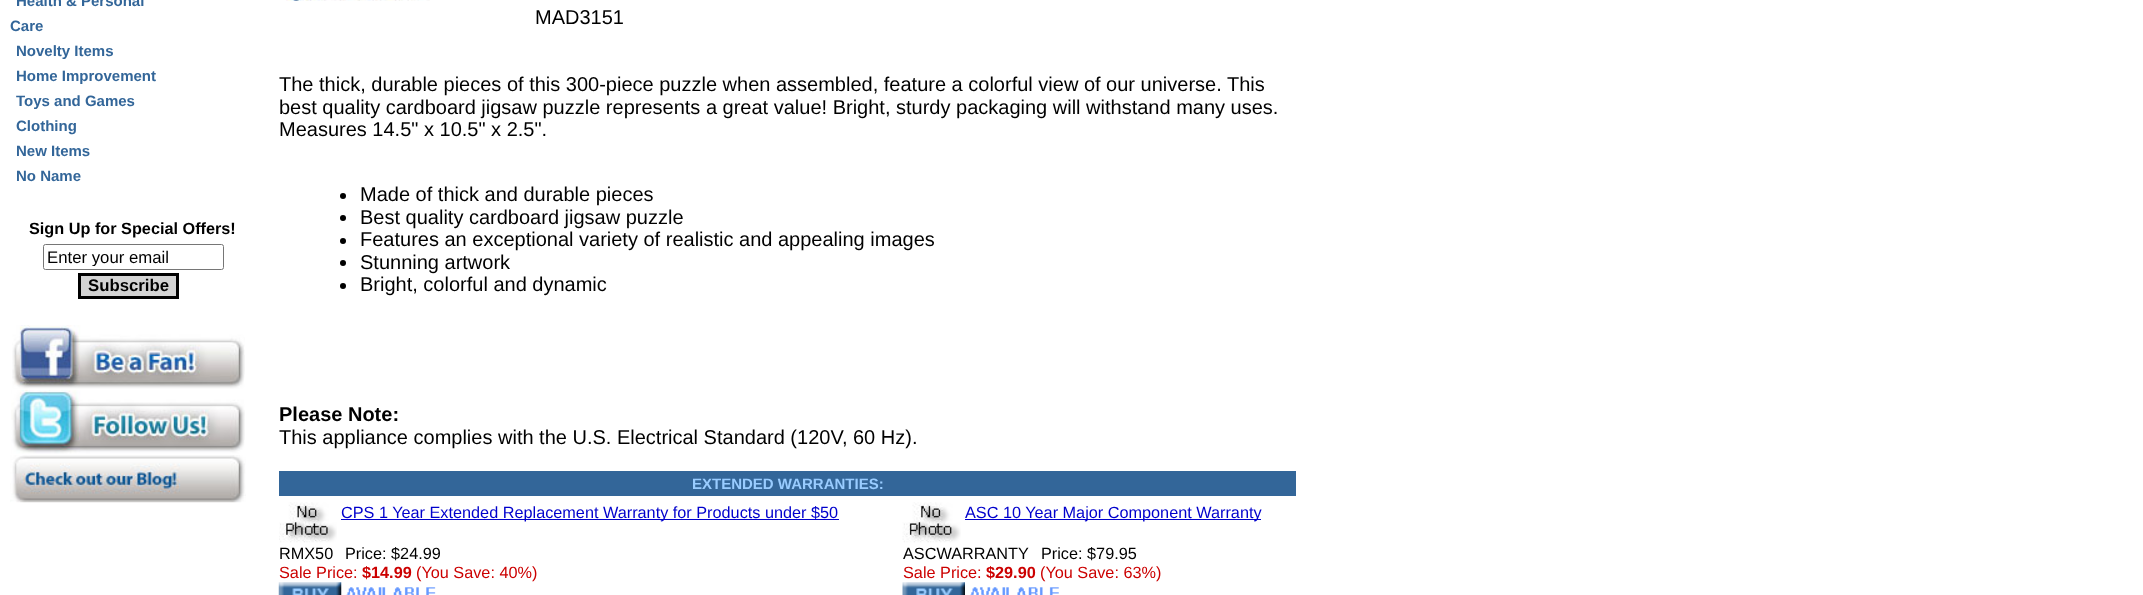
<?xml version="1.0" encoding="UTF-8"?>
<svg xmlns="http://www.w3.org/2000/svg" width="2143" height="595">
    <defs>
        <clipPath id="clip1"><rect x="48" y="248" width="171" height="18"/></clipPath>
    </defs>
    <rect width="100%" height="100%" fill="#FFFFFF"/>
    <text x="16" y="6" font-family="Liberation Sans" font-size="15" font-weight="700" fill="#336699">Health &amp; Personal</text>
    <text x="10" y="31" font-family="Liberation Sans" font-size="15" font-weight="700" fill="#336699">Care</text>
    <text font-family="Liberation Sans" font-size="15" font-weight="700" fill="#336699">
        <tspan x="16" y="56">Novelty Items</tspan>
        <tspan x="16" y="81">Home Improvement</tspan>
        <tspan x="16" y="106">Toys and Games</tspan>
        <tspan x="16" y="131">Clothing</tspan>
        <tspan x="16" y="156">New Items</tspan>
        <tspan x="16" y="181">No Name</tspan>
    </text>
    <text x="29" y="234" font-family="Liberation Sans" font-size="16.25" font-weight="700" fill="#000000">Sign Up for Special Offers!</text>
    <rect x="43.5" y="244.5" width="180" height="25" rx="2" fill="none" stroke="#767676"/>
    <g clip-path="url(#clip1)">
        <text x="47" y="263" font-family="Liberation Sans" font-size="16.75" fill="#000000">Enter your email</text>
    </g>
    <rect x="79.5" y="274.5" width="98" height="23" fill="#D3D3D3" stroke="#000000" stroke-width="3"/>
    <text x="88" y="291" font-family="Liberation Sans" font-size="16.75" font-weight="700" fill="#000000">Subscribe</text>
    <image x="12" y="325" width="233" height="64" href="img_01.png"/>
    <image x="11" y="389" width="234" height="65" href="img_02.png"/>
    <image x="10" y="455" width="236" height="48" href="img_03.png"/>
    <image x="286" y="0" width="144" height="1" href="img_04.png"/>
    <text x="535" y="24" font-family="Liberation Sans" font-size="20" fill="#000000">MAD3151</text>
    <text font-family="Liberation Sans" font-size="20" fill="#000000">
        <tspan x="279" y="91">The thick, durable pieces of this 300-piece puzzle when assembled, feature a colorful view of our universe. This</tspan>
        <tspan x="279" y="114">best quality cardboard jigsaw puzzle represents a great value! Bright, sturdy packaging will withstand many uses.</tspan>
        <tspan x="279" y="136">Measures 14.5" x 10.5" x 2.5".</tspan>
    </text>
    <circle cx="343" cy="196" r="3" fill="#000000"/>
    <text x="360" y="201" font-family="Liberation Sans" font-size="20" fill="#000000">Made of thick and durable pieces</text>
    <circle cx="343" cy="218" r="3" fill="#000000"/>
    <text x="360" y="224" font-family="Liberation Sans" font-size="20" fill="#000000">Best quality cardboard jigsaw puzzle</text>
    <circle cx="343" cy="241" r="3" fill="#000000"/>
    <text x="360" y="246" font-family="Liberation Sans" font-size="20" fill="#000000">Features an exceptional variety of realistic and appealing images</text>
    <circle cx="343" cy="263" r="3" fill="#000000"/>
    <text x="360" y="269" font-family="Liberation Sans" font-size="20" fill="#000000">Stunning artwork</text>
    <circle cx="343" cy="286" r="3" fill="#000000"/>
    <text x="360" y="291" font-family="Liberation Sans" font-size="20" fill="#000000">Bright, colorful and dynamic</text>
    <text x="279" y="421" font-family="Liberation Sans" font-size="20" font-weight="700" fill="#000000">Please Note:</text>
    <text x="279" y="444" font-family="Liberation Sans" font-size="20" fill="#000000">This appliance complies with the U.S. Electrical Standard (120V, 60 Hz).</text>
    <rect x="279" y="471" width="1017" height="25" fill="#336699"/>
    <text x="692" y="489" font-family="Liberation Sans" font-size="15" font-weight="700" fill="#99CCFF">EXTENDED WARRANTIES:</text>
    <image x="279" y="502" width="58" height="41" href="img_05.png"/>
    <rect x="341" y="519" width="498" height="1" fill="#0000CC"/>
    <text x="341" y="518" font-family="Liberation Sans" font-size="16.25" fill="#0000CC">CPS 1 Year Extended Replacement Warranty for Products under $50</text>
    <text x="279" y="559" font-family="Liberation Sans" font-size="16.25" fill="#000000">RMX50</text>
    <text x="345" y="559" font-family="Liberation Sans" font-size="16.25" fill="#000000">Price: $24.99</text>
    <text x="279" y="578" font-family="Liberation Sans" font-size="16.25" fill="#CC0000">Sale Price:</text>
    <text x="362" y="578" font-family="Liberation Sans" font-size="16.25" font-weight="700" fill="#CC0000">$14.99</text>
    <text x="416" y="578" font-family="Liberation Sans" font-size="16.25" fill="#CC0000">(You Save: 40%)</text>
    <image x="278" y="582" width="64" height="13" href="img_06.png"/>
    <image x="346" y="587" width="90" height="8" href="img_07.png"/>
    <image x="902" y="502" width="59" height="41" href="img_08.png"/>
    <rect x="965" y="519" width="296" height="1" fill="#0000CC"/>
    <text x="965" y="518" font-family="Liberation Sans" font-size="16.25" fill="#0000CC">ASC 10 Year Major Component Warranty</text>
    <text x="903" y="559" font-family="Liberation Sans" font-size="16.25" fill="#000000">ASCWARRANTY</text>
    <text x="1041" y="559" font-family="Liberation Sans" font-size="16.25" fill="#000000">Price: $79.95</text>
    <text x="903" y="578" font-family="Liberation Sans" font-size="16.25" fill="#CC0000">Sale Price:</text>
    <text x="986" y="578" font-family="Liberation Sans" font-size="16.25" font-weight="700" fill="#CC0000">$29.90</text>
    <text x="1040" y="578" font-family="Liberation Sans" font-size="16.25" fill="#CC0000">(You Save: 63%)</text>
    <image x="902" y="582" width="63" height="13" href="img_09.png"/>
    <image x="970" y="587" width="89" height="8" href="img_10.png"/>
</svg>
